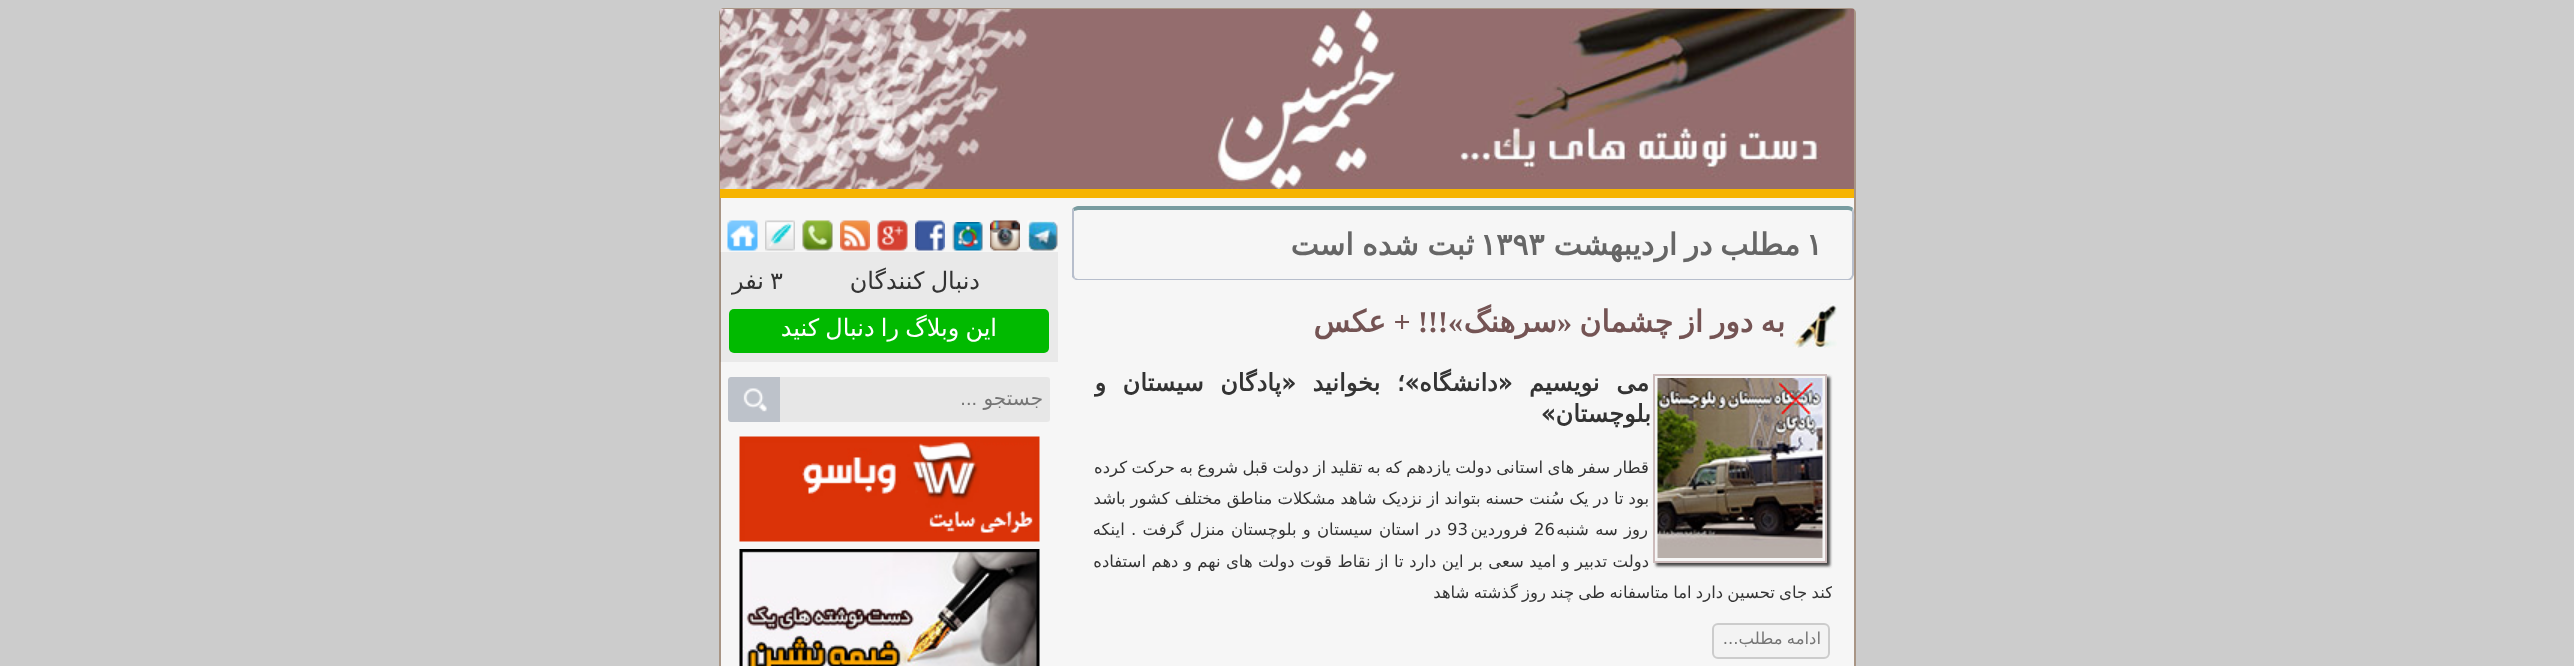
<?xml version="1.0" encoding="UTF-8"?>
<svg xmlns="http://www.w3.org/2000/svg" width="2574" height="666">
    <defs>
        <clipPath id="clip1"><path d="M 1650 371 H 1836 V 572 H 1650 Z M 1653 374 H 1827 V 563 H 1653 Z" clip-rule="evenodd"/></clipPath>
        <filter id="blur1" x="-50%" y="-200%" width="200%" height="500%"><feGaussianBlur stdDeviation="1.5"/></filter>
        <clipPath id="clip2"><rect x="1094" y="348" width="738" height="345"/></clipPath>
    </defs>
    <rect width="100%" height="100%" fill="#CCCCCC"/>
    <rect x="720" y="9" width="1135" height="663" rx="4" fill="#F6F6F6" stroke="#A89585" stroke-width="2"/>
    <image x="720" y="9" width="1134" height="180" href="img_01.png"/>
    <rect x="720" y="189" width="1134" height="9" fill="#F6B402"/>
    <path d="M 1078 206 C 1076 206 1075 207 1073 208 L 1074 211 C 1075 211 1077 210 1078 210 H 1848 C 1850 210 1852 211 1852 212 L 1853 208 C 1852 207 1850 206 1848 206 Z" fill="#799CA0"/>
    <path d="M 1853 208 C 1855 212 1854 221 1854 222 V 275 L 1852 279 L 1851 277 L 1852 275 V 212 Z" fill="#B7BECC"/>
    <path d="M 1852 279 C 1851 280 1849 280 1848 280 H 1078 C 1077 280 1075 280 1074 279 L 1075 278 L 1078 279 H 1848 C 1849 279 1850 278 1851 277 Z" fill="#B7BECC"/>
    <path d="M 1072 209 L 1073 208 L 1074 211 V 212 V 275 L 1075 278 L 1074 279 L 1072 277 Z" fill="#B7BECC"/>
    <text x="1806" y="255" font-family="DejaVu Sans" font-size="30" font-weight="700" fill="#666666">۱</text>
    <text x="1800" y="255" word-spacing="-2" font-family="DejaVu Sans" font-size="30" font-weight="700" direction="rtl" fill="#666666">مطلب در ارديبهشت</text>
    <text x="1480" y="255" font-family="DejaVu Sans" font-size="30" font-weight="700" fill="#666666">۱۳۹۳</text>
    <text x="1474" y="255" word-spacing="-1" font-family="DejaVu Sans" font-size="30" font-weight="700" direction="rtl" fill="#666666">ثبت شده است</text>
    <image x="1792" y="303" width="45" height="45" href="img_02.png"/>
    <text x="1785" y="332" font-family="DejaVu Sans" font-size="30" font-weight="700" direction="rtl" fill="#745454">به</text>
    <text x="1753" y="332" font-family="DejaVu Sans" font-size="30" font-weight="700" direction="rtl" fill="#745454">دور</text>
    <text x="1703" y="332" font-family="DejaVu Sans" font-size="30" font-weight="700" direction="rtl" fill="#745454">از</text>
    <text x="1673" y="332" font-family="DejaVu Sans" font-size="30" font-weight="700" direction="rtl" fill="#745454">چشمان</text>
    <text x="1572" y="332" font-family="Liberation Serif" font-size="30" font-weight="700" direction="rtl" fill="#745454">«</text>
    <text x="1557" y="332" font-family="DejaVu Sans" font-size="30" font-weight="700" direction="rtl" fill="#745454">سرهنگ</text>
    <text x="1463" y="332" font-family="Liberation Serif" font-size="30" font-weight="700" direction="rtl" fill="#745454">»!!! +</text>
    <text x="1386" y="332" font-family="DejaVu Sans" font-size="30" font-weight="700" direction="rtl" fill="#745454">عکس</text>
    <g clip-path="url(#clip1)">
        <rect x="1656" y="377" width="174" height="189" fill="#444444" filter="url(#blur1)"/>
    </g>
    <rect x="1654" y="375" width="172" height="187" fill="none" stroke="#CDBCBC" stroke-width="2"/>
    <image x="1657" y="378" width="166" height="180" href="img_03.png"/>
    <g clip-path="url(#clip2)">
        <text x="1649" y="391" word-spacing="9" font-family="DejaVu Sans" font-size="24" font-weight="700" direction="rtl" fill="#333333">می نویسیم «دانشگاه»؛ بخوانید «پادگان سیستان و</text>
    </g>
    <text x="1651" y="422" font-family="DejaVu Sans" font-size="24" font-weight="700" direction="rtl" fill="#333333">بلوچستان»</text>
    <text x="1649" y="473" font-family="DejaVu Sans" font-size="16.5" direction="rtl" fill="#333333">قطار</text>
    <text x="1610" y="473" word-spacing="-0.75" font-family="DejaVu Sans" font-size="16.5" direction="rtl" fill="#333333">سفر های استانی دولت یازدهم که به تقلید از دولت قبل شروع به حرکت کرده</text>
    <text x="1649" y="504" word-spacing="-0.25" font-family="DejaVu Sans" font-size="16.5" direction="rtl" fill="#333333">بود تا در یک سُنت حسنه بتواند از نزدیک شاهد مشکلات مناطق مختلف کشور باشد</text>
    <text x="1648" y="535" word-spacing="1" font-family="DejaVu Sans" font-size="16.5" direction="rtl" fill="#333333">روز سه شنبه</text>
    <text x="1534" y="535" font-family="DejaVu Sans" font-size="16.5" fill="#333333">26</text>
    <text x="1528" y="535" font-family="DejaVu Sans" font-size="16.5" direction="rtl" fill="#333333">فروردین</text>
    <text x="1447" y="535" font-family="DejaVu Sans" font-size="16.5" fill="#333333">93</text>
    <text x="1441" y="535" word-spacing="1" font-family="DejaVu Sans" font-size="16.5" direction="rtl" fill="#333333">در استان سیستان و بلوچستان منزل گرفت . اینکه</text>
    <text x="1649" y="567" word-spacing="0.2" font-family="DejaVu Sans" font-size="16.5" direction="rtl" fill="#333333">دولت تدبیر و امید سعی بر این دارد تا از نقاط قوت دولت های نهم و دهم</text>
    <text x="1146" y="567" font-family="DejaVu Sans" font-size="16.5" direction="rtl" fill="#333333">استفاده</text>
    <g clip-path="url(#clip2)">
        <text x="1833" y="598" word-spacing="-1" font-family="DejaVu Sans" font-size="16.5" direction="rtl" fill="#333333">کند جای تحسین دارد اما متاسفانه طی چند روز گذشته شاهد</text>
    </g>
    <rect x="1713" y="624" width="116" height="34" rx="5" fill="#F3F3F3" stroke="#CCCCCC" stroke-width="2"/>
    <text x="1821" y="644" word-spacing="-1" font-family="DejaVu Sans" font-size="16.5" direction="rtl" fill="#757575">ادامه مطلب...</text>
    <image x="1027" y="220" width="31" height="31" href="img_04.png"/>
    <image x="990" y="220" width="30" height="31" href="img_05.png"/>
    <image x="952" y="222" width="31" height="29" href="img_06.png"/>
    <image x="915" y="220" width="30" height="31" href="img_07.png"/>
    <image x="877" y="220" width="31" height="31" href="img_08.png"/>
    <image x="840" y="220" width="30" height="31" href="img_09.png"/>
    <image x="802" y="220" width="31" height="31" href="img_10.png"/>
    <image x="765" y="220" width="30" height="31" href="img_11.png"/>
    <image x="727" y="220" width="31" height="31" href="img_12.png"/>
    <rect x="720" y="252" width="338" height="110" fill="#000000" fill-opacity="0.05"/>
    <text x="980" y="289" word-spacing="-1.5" font-family="DejaVu Sans" font-size="24" direction="rtl" fill="#333333">دنبال کنندگان</text>
    <text x="770" y="289" font-family="DejaVu Sans" font-size="24" fill="#333333">۳</text>
    <text x="764" y="289" font-family="DejaVu Sans" font-size="24" direction="rtl" fill="#333333">نفر</text>
    <rect x="729" y="309" width="320" height="44" rx="5" fill="#01BA00"/>
    <text x="997" y="336" word-spacing="-1.5" font-family="DejaVu Sans" font-size="24" direction="rtl" fill="#FFFFFF">این وبلاگ را دنبال کنید</text>
    <rect x="728" y="377" width="322" height="45" rx="3" fill="#E7E7E7"/>
    <text x="1043" y="405" font-family="DejaVu Sans" font-size="20" direction="rtl" fill="#757575">جستجو</text>
    <text x="977" y="405" font-family="Liberation Sans" font-size="20" direction="rtl" fill="#757575">...</text>
    <path d="M 731 377 H 780 V 422 H 731 C 729.5 422 728 420.5 728 419 V 380 C 728 378.5 729.5 377 731 377 Z" fill="#BDC2CA"/>
    <image x="743" y="388" width="24" height="24" href="img_13.png"/>
    <image x="739" y="436" width="301" height="106" href="img_14.png"/>
    <image x="739" y="549" width="301" height="117" href="img_15.png"/>
</svg>
